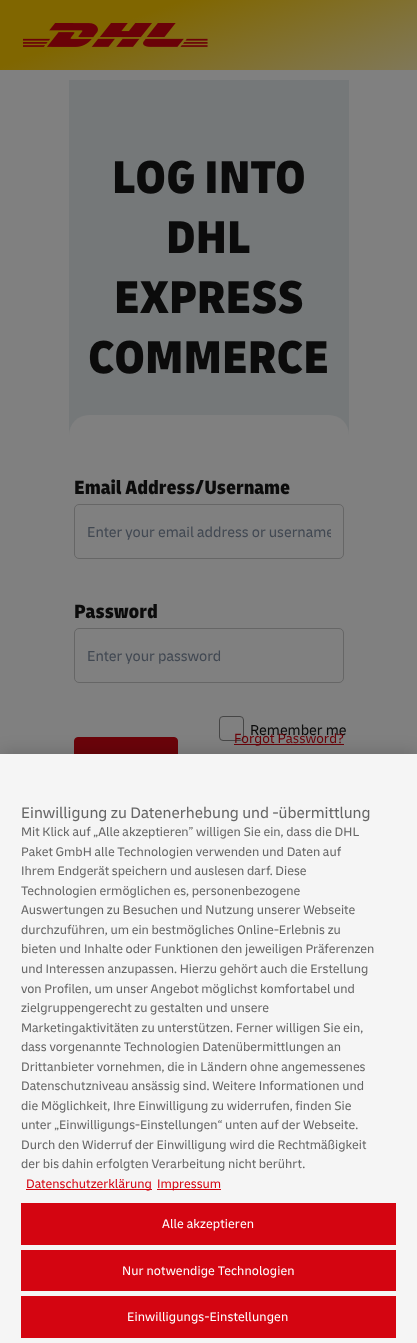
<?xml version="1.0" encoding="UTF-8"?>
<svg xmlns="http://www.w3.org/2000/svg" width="417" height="1343">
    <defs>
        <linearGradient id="g1" gradientUnits="userSpaceOnUse" x1="173" y1="-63" x2="244" y2="133"><stop offset="0" stop-color="#806600"/><stop offset="0.3" stop-color="#806600"/><stop offset="0.79" stop-color="#807340"/><stop offset="1" stop-color="#807859"/></linearGradient>
        <clipPath id="clip1"><rect x="87" y="521" width="244" height="21"/></clipPath>
        <filter id="blur1" x="-50%" y="-200%" width="200%" height="500%"><feGaussianBlur stdDeviation="9"/></filter>
    </defs>
    <rect width="100%" height="100%" fill="#808080"/>
    <rect x="0" y="0" width="417" height="70" fill="url(#g1)"/>
    <image x="23" y="23" width="185" height="24" href="img_01.png"/>
    <rect x="69" y="80" width="280" height="355" fill="#757879"/>
    <text x="112" y="193" font-family="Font" font-size="48" font-weight="800" fill="#0B0B0B">LOG INTO</text>
    <text x="166" y="253" font-family="Font" font-size="48" font-weight="800" fill="#0B0B0B">DHL</text>
    <text x="114" y="313" font-family="Font" font-size="48" font-weight="800" fill="#0B0B0B">EXPRESS</text>
    <text x="88" y="373" font-family="Font" font-size="48" font-weight="800" fill="#0B0B0B">COMMERCE</text>
    <rect x="69" y="415" width="280" height="437" rx="20" fill="#808080"/>
    <text x="74" y="494" font-family="Font" font-size="20" font-weight="800" fill="#0B0B0B">Email Address/Username</text>
    <rect x="74.5" y="504.5" width="269" height="54" rx="4.5" fill="none" stroke="#666666"/>
    <g clip-path="url(#clip1)">
        <text x="87" y="537" font-family="Font" font-size="15" fill="#414852">Enter your email address or username</text>
    </g>
    <text x="74" y="618" font-family="Font" font-size="20" font-weight="800" fill="#0B0B0B">Password</text>
    <rect x="74.5" y="628.5" width="269" height="54" rx="4.5" fill="none" stroke="#666666"/>
    <text x="87" y="661" font-family="Font" font-size="15" fill="#414852">Enter your password</text>
    <rect x="219.5" y="716.5" width="24" height="24" rx="3.5" fill="none" stroke="#464646"/>
    <text x="250" y="735" font-family="Font" font-size="15" fill="#0B0B0B">Remember me</text>
    <rect x="74.5" y="737.5" width="103" height="41" rx="3.5" fill="#6A0309" stroke="#6A0309"/>
    <rect x="234" y="744" width="110" height="1" fill="#6A0309"/>
    <text x="234" y="743" font-family="Font" font-size="14" fill="#6A0309">Forgot Password?</text>
    <rect x="0" y="754" width="417" height="589" fill="#000000" fill-opacity="0.2" filter="url(#blur1)"/>
    <rect x="0" y="754" width="417" height="589" fill="#F5F5F5"/>
    <text x="21" y="818" font-family="Font" font-size="16" fill="#666666">Einwilligung zu Datenerhebung und -übermittlung</text>
    <text font-family="Font" font-size="13" fill="#666666">
        <tspan x="21" y="836">Mit Klick auf „Alle akzeptieren” willigen Sie ein, dass die DHL</tspan>
        <tspan x="21" y="856">Paket GmbH alle Technologien verwenden und Daten auf</tspan>
        <tspan x="21" y="875">Ihrem Endgerät speichern und auslesen darf. Diese</tspan>
        <tspan x="21" y="895">Technologien ermöglichen es, personenbezogene</tspan>
        <tspan x="21" y="914">Auswertungen zu Besuchen und Nutzung unserer Webseite</tspan>
        <tspan x="21" y="934">durchzuführen, um ein bestmögliches Online-Erlebnis zu</tspan>
        <tspan x="21" y="953">bieten und Inhalte oder Funktionen den jeweiligen Präferenzen</tspan>
        <tspan x="21" y="973">und Interessen anzupassen. Hierzu gehört auch die Erstellung</tspan>
        <tspan x="21" y="993">von Profilen, um unser Angebot möglichst komfortabel und</tspan>
        <tspan x="21" y="1012">zielgruppengerecht zu gestalten und unsere</tspan>
        <tspan x="21" y="1032">Marketingaktivitäten zu unterstützen. Ferner willigen Sie ein,</tspan>
        <tspan x="21" y="1051">dass vorgenannte Technologien Datenübermittlungen an</tspan>
        <tspan x="21" y="1071">Drittanbieter vornehmen, die in Ländern ohne angemessenes</tspan>
        <tspan x="21" y="1090">Datenschutzniveau ansässig sind. Weitere Informationen und</tspan>
        <tspan x="21" y="1110">die Möglichkeit, Ihre Einwilligung zu widerrufen, finden Sie</tspan>
        <tspan x="21" y="1129">unter „Einwilligungs-Einstellungen“ unten auf der Webseite.</tspan>
        <tspan x="21" y="1149">Durch den Widerruf der Einwilligung wird die Rechtmäßigkeit</tspan>
        <tspan x="21" y="1168">der bis dahin erfolgten Verarbeitung nicht berührt.</tspan>
    </text>
    <rect x="26" y="1189" width="126" height="1" fill="#D40511"/>
    <text x="26" y="1188" font-family="Font" font-size="13" fill="#D40511">Datenschutzerklärung</text>
    <rect x="157" y="1189" width="64" height="1" fill="#D40511"/>
    <text x="157" y="1188" font-family="Font" font-size="13" fill="#D40511">Impressum</text>
    <rect x="21" y="1203" width="375" height="42" fill="#D40511"/>
    <text x="162" y="1228" font-family="Font" font-size="13" letter-spacing="0.1" fill="#FFFFFF">Alle akzeptieren</text>
    <rect x="21" y="1250" width="375" height="41" fill="#D40511"/>
    <text x="122" y="1275" font-family="Font" font-size="13" letter-spacing="0.1" fill="#FFFFFF">Nur notwendige Technologien</text>
    <rect x="21" y="1296" width="375" height="42" fill="#D40511"/>
    <text x="127" y="1321" font-family="Font" font-size="13" letter-spacing="0.1" fill="#FFFFFF">Einwilligungs-Einstellungen</text>
</svg>
